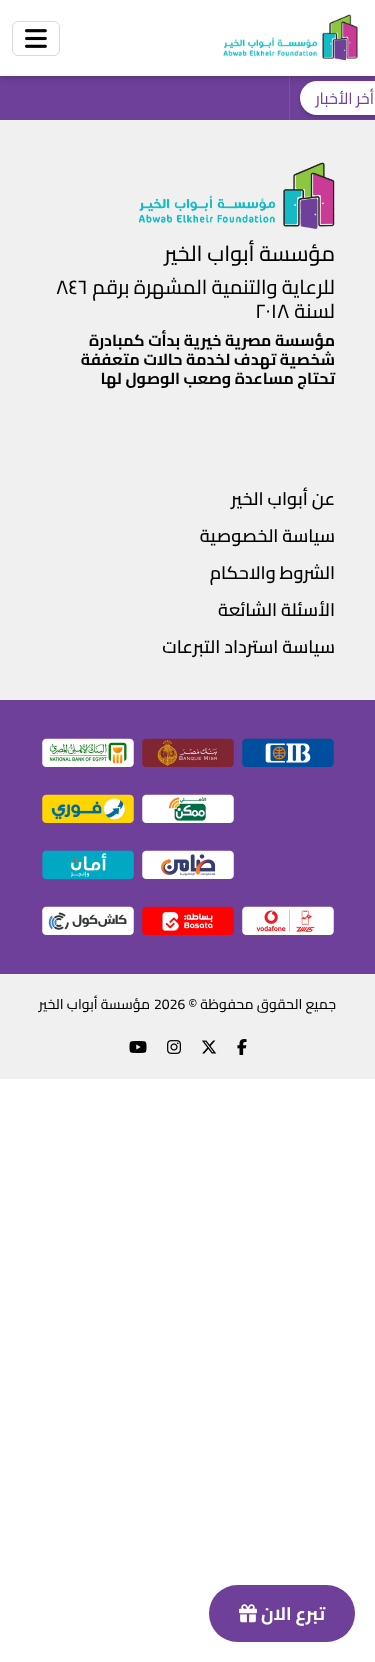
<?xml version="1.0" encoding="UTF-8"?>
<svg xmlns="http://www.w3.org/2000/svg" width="375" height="1662">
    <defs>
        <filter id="blur1" x="-50%" y="-200%" width="200%" height="500%"><feGaussianBlur stdDeviation="2"/></filter>
        <filter id="blur2" x="-50%" y="-200%" width="200%" height="500%"><feGaussianBlur stdDeviation="5"/></filter>
    </defs>
    <rect width="100%" height="100%" fill="#FFFFFF"/>
    <rect x="0" y="76" width="375" height="44" fill="#6E4099"/>
    <rect x="300" y="83" width="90" height="34" rx="17" fill="#000000" fill-opacity="0.2" filter="url(#blur1)"/>
    <rect x="300" y="81" width="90" height="34" rx="17" fill="#FFFFFF"/>
    <rect x="289" y="76" width="1" height="44" fill="#7D53A3"/>
    <rect x="0" y="0" width="375" height="76" fill="#000000" fill-opacity="0.3" filter="url(#blur2)"/>
    <rect x="0" y="0" width="375" height="76" fill="#FFFFFF"/>
    <image x="223" y="14" width="135" height="47" href="img_01.png"/>
    <rect x="12.5" y="21.5" width="47" height="34" rx="5.5" fill="none" stroke="#D9D9D9"/>
    <image x="25" y="29" width="22" height="19" href="img_02.png"/>
    <text x="374" y="104" font-family="Cairo" font-size="16" direction="rtl" fill="#6E4099">أخر الأخبار</text>
    <rect x="0" y="120" width="375" height="959" fill="#F0F0F0"/>
    <image x="138" y="162" width="197" height="67" href="img_03.png"/>
    <text x="335" y="261" font-family="Cairo" font-size="21.5" font-weight="500" direction="rtl" fill="#000000">مؤسسة أبواب الخير</text>
    <text x="335" y="294" font-family="Cairo" font-size="20" font-weight="500" direction="rtl" fill="#000000">للرعاية والتنمية المشهرة برقم</text>
    <text x="56" y="294" font-family="Cairo" font-size="20" font-weight="500" fill="#000000">٨٤٦</text>
    <text x="335" y="318" font-family="Cairo" font-size="20" font-weight="500" direction="rtl" fill="#000000">لسنة</text>
    <text x="255" y="318" font-family="Cairo" font-size="20" font-weight="500" fill="#000000">٢٠١٨</text>
    <text font-family="Cairo" font-size="16" font-weight="700" direction="rtl" fill="#000000">
        <tspan x="335" y="346">مؤسسة مصرية خيرية بدأت كمبادرة</tspan>
        <tspan x="335" y="365">شخصية تهدف لخدمة حالات متعففة</tspan>
        <tspan x="335" y="384">تحتاج مساعدة وصعب الوصول لها</tspan>
    </text>
    <text x="335" y="505" font-family="Cairo" font-size="18" font-weight="600" direction="rtl" fill="#000000">عن أبواب الخير</text>
    <text x="335" y="542" font-family="Cairo" font-size="18" font-weight="600" direction="rtl" fill="#000000">سياسة الخصوصية</text>
    <text x="335" y="579" font-family="Cairo" font-size="18" font-weight="600" direction="rtl" fill="#000000">الشروط والاحكام</text>
    <text x="335" y="616" font-family="Cairo" font-size="18" font-weight="600" direction="rtl" fill="#000000">الأسئلة الشائعة</text>
    <text x="335" y="653" font-family="Cairo" font-size="18" font-weight="600" direction="rtl" fill="#000000">سياسة استرداد التبرعات</text>
    <rect x="0" y="700" width="375" height="274" fill="#6E4099"/>
    <image x="242" y="738" width="92" height="29" href="img_04.png"/>
    <image x="142" y="738" width="92" height="29" href="img_05.png"/>
    <image x="42" y="738" width="92" height="29" href="img_06.png"/>
    <image x="142" y="794" width="92" height="29" href="img_07.png"/>
    <image x="42" y="794" width="92" height="29" href="img_08.png"/>
    <image x="142" y="850" width="92" height="29" href="img_09.png"/>
    <image x="42" y="850" width="92" height="30" href="img_10.png"/>
    <image x="242" y="906" width="92" height="29" href="img_11.png"/>
    <image x="142" y="906" width="92" height="29" href="img_12.png"/>
    <image x="42" y="906" width="92" height="29" href="img_13.png"/>
    <text x="336" y="1009" font-family="Cairo" font-size="14" font-weight="500" direction="rtl" fill="#000000">جميع الحقوق محفوظة ©</text>
    <text x="154" y="1009" font-family="Cairo" font-size="14" font-weight="500" fill="#000000">2026</text>
    <text x="150" y="1009" font-family="Cairo" font-size="14" font-weight="500" direction="rtl" fill="#000000">مؤسسة أبواب الخير</text>
    <image x="237" y="1039" width="10" height="16" href="img_14.png"/>
    <image x="202" y="1040" width="15" height="14" href="img_15.png"/>
    <image x="167" y="1040" width="14" height="14" href="img_16.png"/>
    <image x="129" y="1041" width="18" height="12" href="img_17.png"/>
    <rect x="209" y="1585" width="146" height="57" rx="28.5" fill="#6E4099"/>
    <text x="325" y="1620" font-family="Cairo" font-size="18" font-weight="700" direction="rtl" fill="#FFFFFF">تبرع الان</text>
    <image x="239" y="1604" width="18" height="19" href="img_18.png"/>
</svg>
